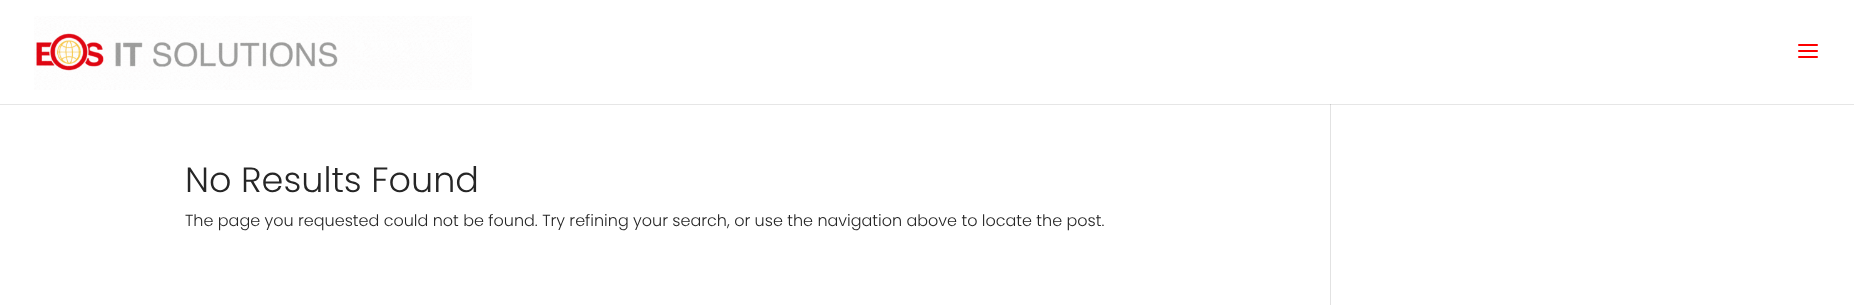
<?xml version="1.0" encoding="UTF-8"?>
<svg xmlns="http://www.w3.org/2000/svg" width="1854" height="305">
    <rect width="100%" height="100%" fill="#FFFFFF"/>
    <rect x="0" y="104" width="1854" height="1" fill="#E6E6E6"/>
    <image x="34" y="16" width="438" height="74" href="img_01.png"/>
    <image x="1798" y="44" width="20" height="14" href="img_02.png"/>
    <text x="185" y="192" font-family="Poppins" font-size="35" font-weight="300" fill="#262626">No Results Found</text>
    <text x="185" y="226" font-family="Poppins" font-size="16" font-weight="300" fill="#262626">The page you requested could not be found. Try refining your search, or use the navigation above to locate the post.</text>
    <rect x="1330" y="104" width="1" height="201" fill="#E2E2E2"/>
    <rect x="1330" y="104" width="1" height="1" fill="#CBCBCB"/>
</svg>
